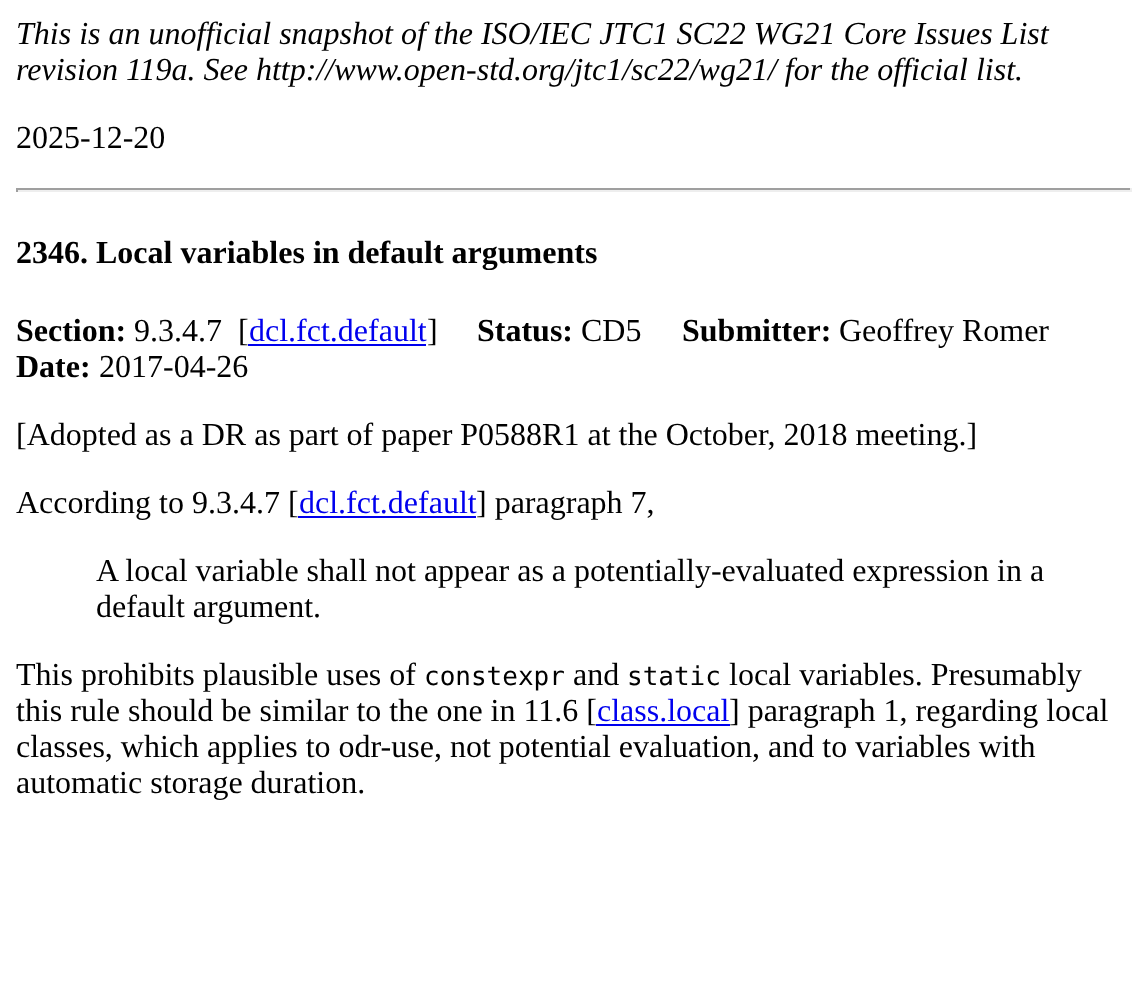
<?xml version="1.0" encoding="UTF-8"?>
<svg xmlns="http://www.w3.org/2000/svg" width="1147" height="1003">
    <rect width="100%" height="100%" fill="#FFFFFF"/>
    <text font-family="Liberation Serif" font-size="32" font-style="italic" fill="#000000">
        <tspan x="16" y="44">This is an unofficial snapshot of the ISO/IEC JTC1 SC22 WG21 Core Issues List</tspan>
        <tspan x="16" y="80">revision 119a. See http://www.open-std.org/jtc1/sc22/wg21/ for the official list.</tspan>
    </text>
    <text x="16" y="148" font-family="Liberation Serif" font-size="32" fill="#000000">2025-12-20</text>
    <rect x="16" y="188" width="1116" height="2" fill="#9F9F9F"/>
    <rect x="1130" y="188" width="2" height="4" fill="#EEEEEE"/>
    <rect x="16" y="190" width="1116" height="2" fill="#EEEEEE"/>
    <rect x="16" y="188" width="2" height="4" fill="#9F9F9F"/>
    <text x="16" y="263" font-family="Liberation Serif" font-size="32" font-weight="700" fill="#000000">2346. Local variables in default arguments</text>
    <text x="16" y="341" font-family="Liberation Serif" font-size="32" font-weight="700" fill="#000000">Section:</text>
    <text x="134" y="341" font-family="Liberation Serif" font-size="32" fill="#000000" xml:space="preserve">9.3.4.7  [</text>
    <text x="249" y="341" font-family="Liberation Serif" font-size="32" fill="#0000EE">dcl.fct.default</text>
    <rect x="248" y="344" width="178" height="2" fill="#0000EE"/>
    <text x="427" y="341" font-family="Liberation Serif" font-size="32" fill="#000000">]</text>
    <text x="477" y="341" font-family="Liberation Serif" font-size="32" font-weight="700" fill="#000000">Status:</text>
    <text x="581" y="341" font-family="Liberation Serif" font-size="32" fill="#000000">CD5</text>
    <text x="682" y="341" font-family="Liberation Serif" font-size="32" font-weight="700" fill="#000000">Submitter:</text>
    <text x="839" y="341" font-family="Liberation Serif" font-size="32" fill="#000000">Geoffrey Romer</text>
    <text x="16" y="377" font-family="Liberation Serif" font-size="32" font-weight="700" fill="#000000">Date:</text>
    <text x="99" y="377" font-family="Liberation Serif" font-size="32" fill="#000000">2017-04-26</text>
    <text x="16" y="445" font-family="Liberation Serif" font-size="32" fill="#000000">[Adopted as a DR as part of paper P0588R1 at the October, 2018 meeting.]</text>
    <text x="16" y="513" font-family="Liberation Serif" font-size="32" fill="#000000">According to 9.3.4.7 [</text>
    <text x="299" y="513" font-family="Liberation Serif" font-size="32" fill="#0000EE">dcl.fct.default</text>
    <rect x="298" y="516" width="178" height="2" fill="#0000EE"/>
    <text x="476" y="513" font-family="Liberation Serif" font-size="32" fill="#000000">] paragraph 7,</text>
    <text font-family="Liberation Serif" font-size="32" fill="#000000">
        <tspan x="96" y="581">A local variable shall not appear as a potentially-evaluated expression in a</tspan>
        <tspan x="96" y="617">default argument.</tspan>
    </text>
    <text x="16" y="685" font-family="Liberation Serif" font-size="32" fill="#000000">This prohibits plausible uses of</text>
    <text x="424" y="685" font-family="DejaVu Sans Mono" font-size="26" fill="#000000">constexpr</text>
    <text x="573" y="685" font-family="Liberation Serif" font-size="32" fill="#000000">and</text>
    <text x="627" y="685" font-family="DejaVu Sans Mono" font-size="26" fill="#000000">static</text>
    <text x="729" y="685" font-family="Liberation Serif" font-size="32" fill="#000000">local variables. Presumably</text>
    <text x="16" y="721" font-family="Liberation Serif" font-size="32" fill="#000000">this rule should be similar to the one in 11.6 [</text>
    <text x="597" y="721" font-family="Liberation Serif" font-size="32" fill="#0000EE">class.local</text>
    <rect x="596" y="724" width="134" height="2" fill="#0000EE"/>
    <text x="729" y="721" font-family="Liberation Serif" font-size="32" fill="#000000">] paragraph 1, regarding local</text>
    <text font-family="Liberation Serif" font-size="32" fill="#000000">
        <tspan x="16" y="757">classes, which applies to odr-use, not potential evaluation, and to variables with</tspan>
        <tspan x="16" y="793">automatic storage duration.</tspan>
    </text>
</svg>
